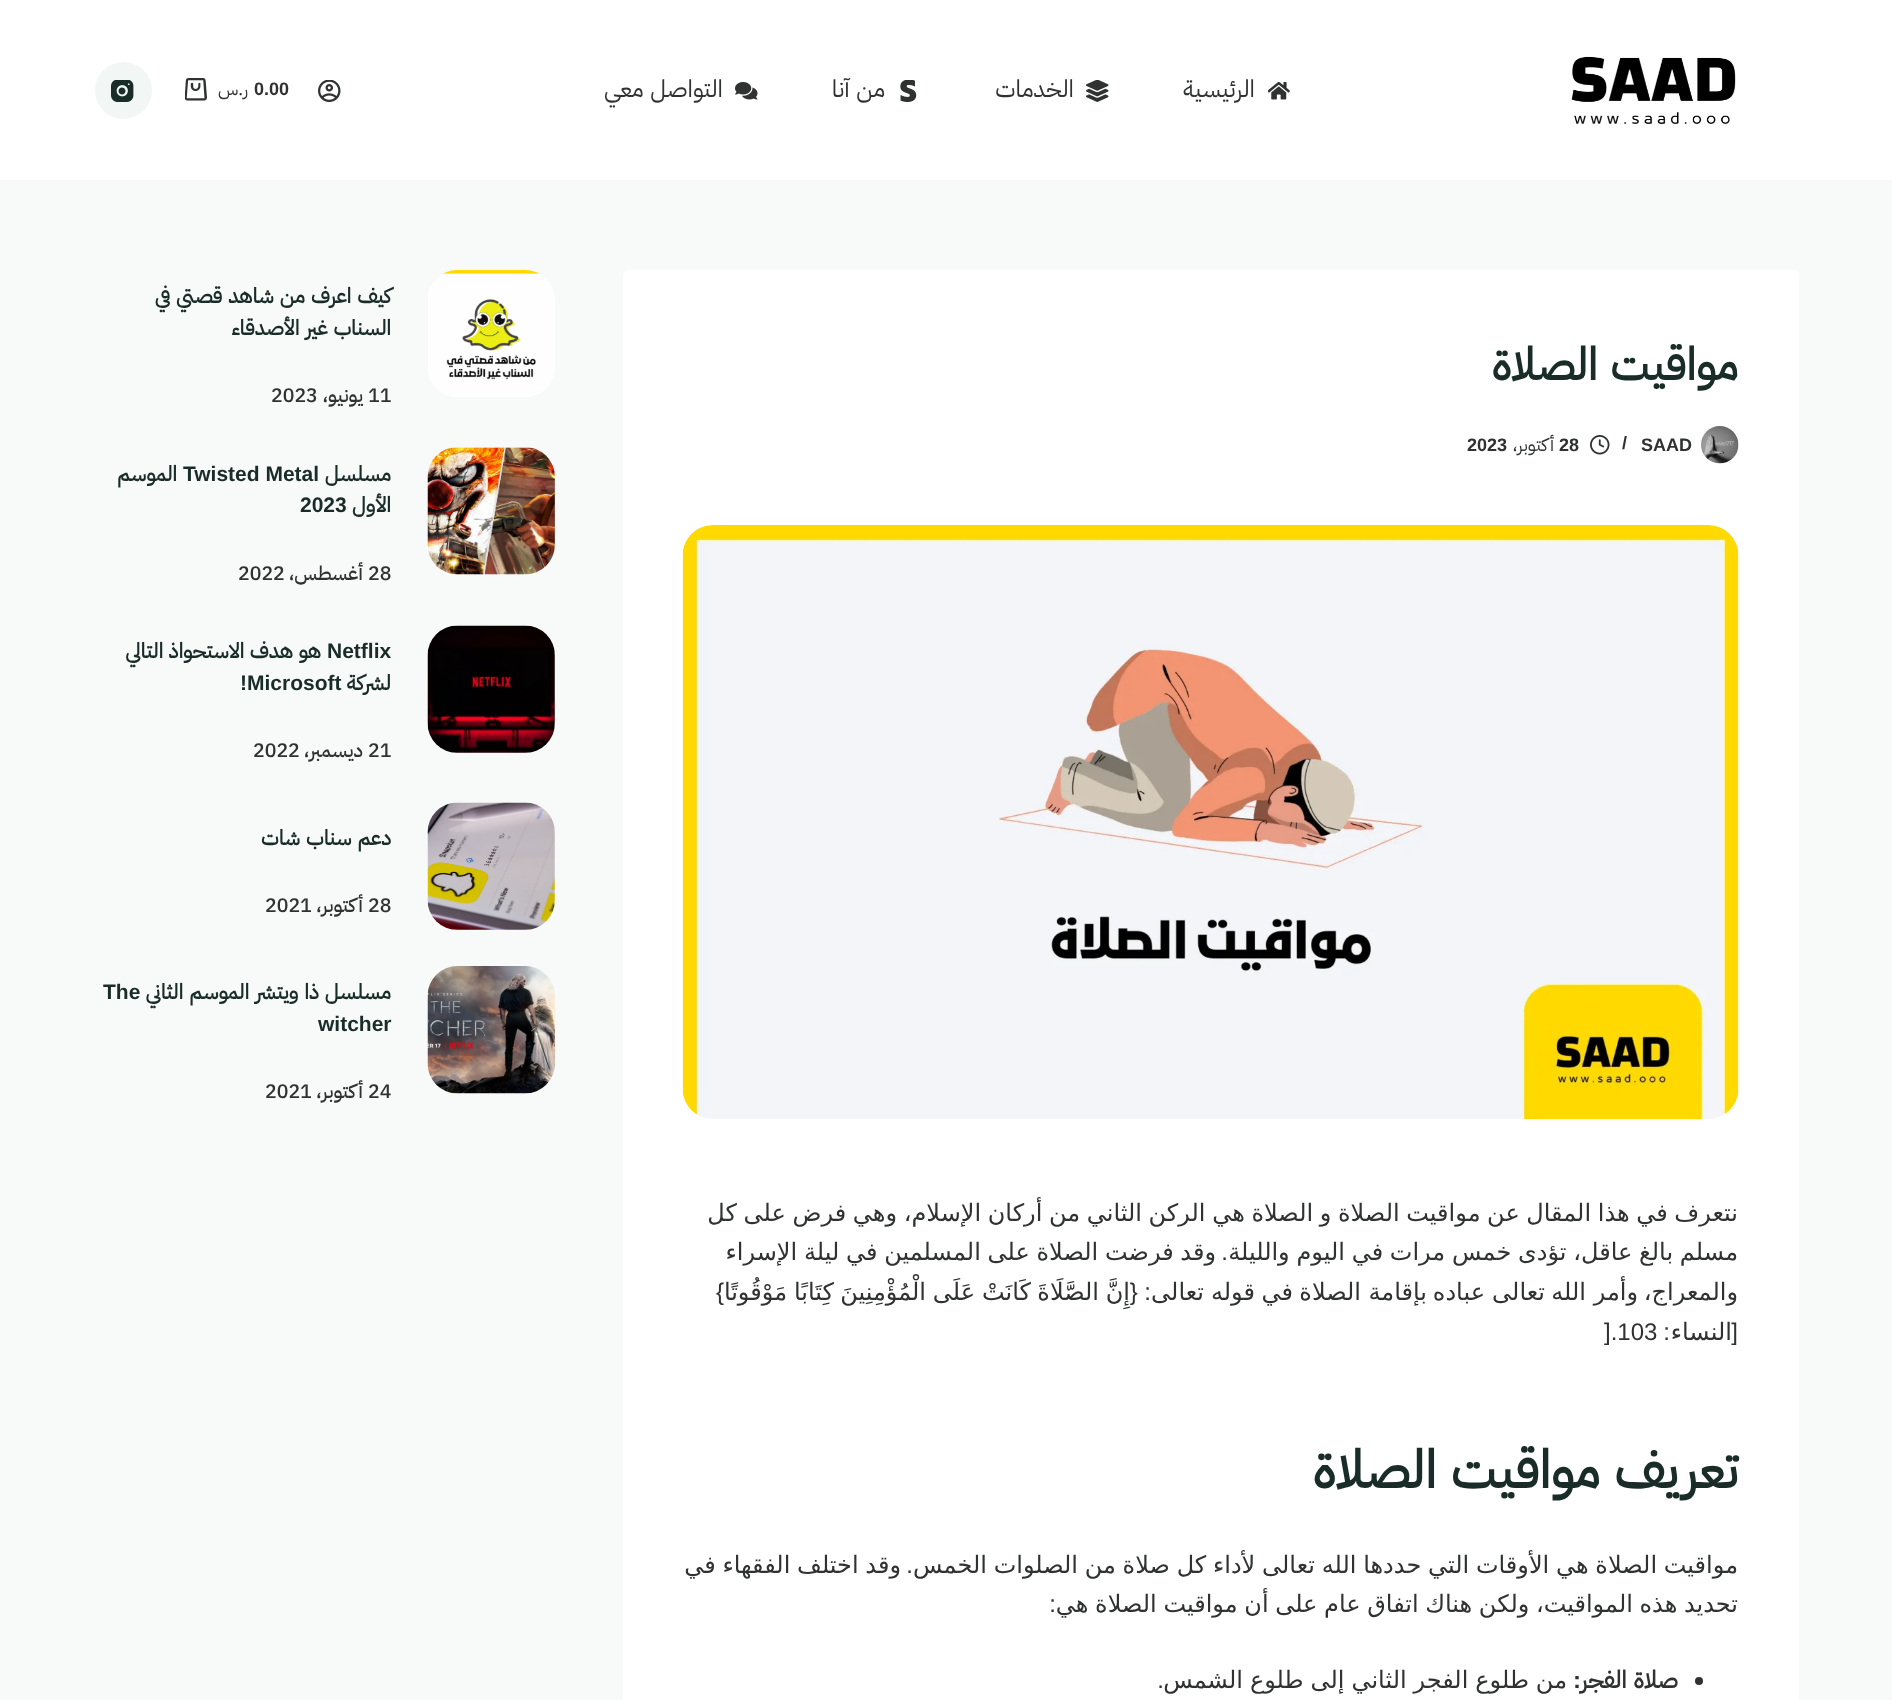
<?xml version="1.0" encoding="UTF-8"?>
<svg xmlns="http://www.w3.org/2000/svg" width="1892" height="1700">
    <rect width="100%" height="100%" fill="#F8FAFA"/>
    <rect x="0" y="0" width="1892" height="180" fill="#FFFFFF"/>
    <image x="1571" y="56" width="165" height="68" href="img_01.png"/>
    <image x="1268" y="82" width="22" height="18" href="img_02.png"/>
    <text x="1255" y="97" font-family="IBM Plex Sans Arabic" font-size="24" direction="rtl" fill="#303232">الرئيسية</text>
    <image x="1086" y="80" width="23" height="22" href="img_03.png"/>
    <text x="1074" y="97" font-family="IBM Plex Sans Arabic" font-size="24" direction="rtl" fill="#303232">الخدمات</text>
    <image x="900" y="80" width="17" height="22" href="img_04.png"/>
    <text x="885" y="97" word-spacing="1" font-family="IBM Plex Sans Arabic" font-size="24" direction="rtl" fill="#303232">من آنا</text>
    <image x="735" y="82" width="23" height="18" href="img_05.png"/>
    <text x="723" y="97" word-spacing="1" font-family="IBM Plex Sans Arabic" font-size="24" direction="rtl" fill="#303232">التواصل معي</text>
    <image x="318" y="80" width="23" height="22" href="img_06.png"/>
    <text x="254" y="95" font-family="Liberation Sans" font-size="18" font-weight="700" fill="#303232">0.00</text>
    <text x="248" y="95" font-family="IBM Plex Sans Arabic" font-size="18" direction="rtl" fill="#303232">ر.س</text>
    <image x="185" y="78" width="22" height="23" href="img_07.png"/>
    <circle cx="123.5" cy="90.5" r="28.5" fill="#F2F7F6"/>
    <image x="111" y="80" width="23" height="22" href="img_08.png"/>
    <rect x="623" y="270" width="1176" height="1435" rx="5" fill="#FFFFFF"/>
    <text x="1738" y="380" word-spacing="2" font-family="IBM Plex Sans Arabic" font-size="45" font-weight="700" direction="rtl" fill="#192C27">مواقيت الصلاة</text>
    <image x="1701" y="426" width="38" height="38" href="img_09.png"/>
    <text x="1641" y="451" font-family="Liberation Sans" font-size="18" font-weight="700" fill="#303232">SAAD</text>
    <text x="1622" y="449" font-family="Liberation Sans" font-size="18" font-weight="700" fill="#303232">/</text>
    <image x="1590" y="435" width="20" height="20" href="img_10.png"/>
    <text x="1559" y="451" font-family="Liberation Sans" font-size="18" font-weight="700" fill="#303232">28</text>
    <text x="1554" y="451" font-family="IBM Plex Sans Arabic" font-size="18" direction="rtl" fill="#303232">أكتوبر،</text>
    <text x="1467" y="451" font-family="Liberation Sans" font-size="18" font-weight="700" fill="#303232">2023</text>
    <image x="682" y="525" width="1057" height="594" href="img_11.png"/>
    <text font-family="DejaVu Sans" font-size="24" direction="rtl" fill="#303232">
        <tspan x="1738" y="1221" word-spacing="-1">نتعرف في هذا المقال عن مواقيت الصلاة و الصلاة هي الركن الثاني من أركان الإسلام، وهي فرض على كل</tspan>
        <tspan x="1738" y="1260" word-spacing="-0.9">مسلم بالغ عاقل، تؤدى خمس مرات في اليوم والليلة</tspan>
    </text>
    <text x="1228" y="1260" font-family="Liberation Sans" font-size="24" direction="rtl" fill="#303232">.</text>
    <text x="1216" y="1260" word-spacing="-0.9" font-family="DejaVu Sans" font-size="24" direction="rtl" fill="#303232">وقد فرضت الصلاة على المسلمين في ليلة الإسراء</text>
    <text x="1738" y="1300" font-family="DejaVu Sans" font-size="24" direction="rtl" fill="#303232">والمعراج،</text>
    <text x="1638" y="1300" font-family="DejaVu Sans" font-size="24" direction="rtl" fill="#303232">وأمر</text>
    <text x="1586" y="1300" font-family="DejaVu Sans" font-size="24" direction="rtl" fill="#303232">الله</text>
    <text x="1545" y="1300" font-family="DejaVu Sans" font-size="24" direction="rtl" fill="#303232">تعالى</text>
    <text x="1485" y="1300" font-family="DejaVu Sans" font-size="24" direction="rtl" fill="#303232">عباده</text>
    <text x="1427" y="1300" font-family="DejaVu Sans" font-size="24" direction="rtl" fill="#303232">بإقامة</text>
    <text x="1361" y="1300" font-family="DejaVu Sans" font-size="24" direction="rtl" fill="#303232">الصلاة</text>
    <text x="1293" y="1300" font-family="DejaVu Sans" font-size="24" direction="rtl" fill="#303232">في</text>
    <text x="1255" y="1300" font-family="DejaVu Sans" font-size="24" direction="rtl" fill="#303232">قوله</text>
    <text x="1204" y="1300" font-family="DejaVu Sans" font-size="24" direction="rtl" fill="#303232">تعالى</text>
    <text x="1151" y="1300" font-family="Liberation Sans" font-size="24" direction="rtl" fill="#303232">: {</text>
    <text x="1130" y="1300" font-family="DejaVu Sans" font-size="24" direction="rtl" fill="#303232">إِنَّ</text>
    <text x="1099" y="1300" font-family="DejaVu Sans" font-size="24" direction="rtl" fill="#303232">الصَّلَاةَ</text>
    <text x="1031" y="1300" font-family="DejaVu Sans" font-size="24" direction="rtl" fill="#303232">كَانَتْ</text>
    <text x="975" y="1300" font-family="DejaVu Sans" font-size="24" direction="rtl" fill="#303232">عَلَى</text>
    <text x="926" y="1300" font-family="DejaVu Sans" font-size="24" direction="rtl" fill="#303232">الْمُؤْمِنِينَ</text>
    <text x="834" y="1300" font-family="DejaVu Sans" font-size="24" direction="rtl" fill="#303232">كِتَابًا</text>
    <text x="787" y="1300" font-family="DejaVu Sans" font-size="24" direction="rtl" fill="#303232">مَوْقُوتًا</text>
    <text x="724" y="1300" font-family="Liberation Sans" font-size="24" direction="rtl" fill="#303232">}</text>
    <text x="1738" y="1340" font-family="Liberation Sans" font-size="24" direction="rtl" fill="#303232">[</text>
    <text x="1732" y="1340" font-family="DejaVu Sans" font-size="24" direction="rtl" fill="#303232">النساء</text>
    <text x="1670" y="1340" font-family="Liberation Sans" font-size="24" direction="rtl" fill="#303232">:</text>
    <text x="1604" y="1340" font-family="Liberation Sans" font-size="24" fill="#303232">].103</text>
    <text x="1738" y="1488" word-spacing="2" font-family="IBM Plex Sans Arabic" font-size="52.5" font-weight="700" direction="rtl" fill="#192C27">تعريف مواقيت الصلاة</text>
    <text x="1738" y="1573" word-spacing="-0.9" font-family="DejaVu Sans" font-size="24" direction="rtl" fill="#303232">مواقيت الصلاة هي الأوقات التي حددها الله تعالى لأداء كل صلاة من الصلوات الخمس</text>
    <text x="913" y="1573" font-family="Liberation Sans" font-size="24" direction="rtl" fill="#303232">.</text>
    <text x="901" y="1573" word-spacing="-0.9" font-family="DejaVu Sans" font-size="24" direction="rtl" fill="#303232">وقد اختلف الفقهاء في</text>
    <text x="1738" y="1612" word-spacing="-1" font-family="DejaVu Sans" font-size="24" direction="rtl" fill="#303232">تحديد هذه المواقيت، ولكن هناك اتفاق عام على أن مواقيت الصلاة هي</text>
    <text x="1056" y="1612" font-family="Liberation Sans" font-size="24" direction="rtl" fill="#303232">:</text>
    <circle cx="1699" cy="1681" r="4" fill="#303232"/>
    <text x="1678" y="1688" word-spacing="1" font-family="IBM Plex Sans Arabic" font-size="24" font-weight="700" direction="rtl" fill="#303232">صلاة الفجر</text>
    <text x="1581" y="1688" font-family="Liberation Sans" font-size="24" font-weight="700" direction="rtl" fill="#303232">:</text>
    <text x="1567" y="1688" word-spacing="-0.75" font-family="DejaVu Sans" font-size="24" direction="rtl" fill="#303232">من طلوع الفجر الثاني إلى طلوع الشمس</text>
    <text x="1164" y="1688" font-family="Liberation Sans" font-size="24" direction="rtl" fill="#303232">.</text>
    <image x="428" y="270" width="127" height="127" href="img_12.png"/>
    <text font-family="IBM Plex Sans Arabic" font-size="21" font-weight="700" direction="rtl" fill="#192C27">
        <tspan x="391" y="303" word-spacing="1">كيف اعرف من شاهد قصتي في</tspan>
        <tspan x="391" y="335" word-spacing="1">السناب غير الأصدقاء</tspan>
    </text>
    <text x="368" y="402" font-family="IBM Plex Sans Arabic" font-size="19.5" font-weight="500" fill="#303232">11</text>
    <text x="363" y="402" font-family="IBM Plex Sans Arabic" font-size="19.5" font-weight="500" direction="rtl" fill="#303232">يونيو،</text>
    <text x="271" y="402" font-family="IBM Plex Sans Arabic" font-size="19.5" font-weight="500" fill="#303232">2023</text>
    <image x="427" y="447" width="128" height="128" href="img_13.png"/>
    <text x="391" y="481" font-family="IBM Plex Sans Arabic" font-size="21" font-weight="700" direction="rtl" fill="#192C27">مسلسل</text>
    <text x="183" y="481" font-family="Liberation Sans" font-size="21" font-weight="700" fill="#192C27">Twisted Metal</text>
    <text x="177" y="481" font-family="IBM Plex Sans Arabic" font-size="21" font-weight="700" direction="rtl" fill="#192C27">الموسم</text>
    <text x="391" y="512" font-family="IBM Plex Sans Arabic" font-size="21" font-weight="700" direction="rtl" fill="#192C27">الأول</text>
    <text x="300" y="512" font-family="Liberation Sans" font-size="21" font-weight="700" fill="#192C27">2023</text>
    <text x="368" y="580" font-family="IBM Plex Sans Arabic" font-size="19.5" font-weight="500" fill="#303232">28</text>
    <text x="363" y="580" font-family="IBM Plex Sans Arabic" font-size="19.5" font-weight="500" direction="rtl" fill="#303232">أغسطس،</text>
    <text x="238" y="580" font-family="IBM Plex Sans Arabic" font-size="19.5" font-weight="500" fill="#303232">2022</text>
    <image x="427" y="625" width="128" height="128" href="img_14.png"/>
    <text x="327" y="658" font-family="Liberation Sans" font-size="21" font-weight="700" fill="#192C27">Netflix</text>
    <text x="321" y="658" word-spacing="0.5" font-family="IBM Plex Sans Arabic" font-size="21" font-weight="700" direction="rtl" fill="#192C27">هو هدف الاستحواذ التالي</text>
    <text x="391" y="690" font-family="IBM Plex Sans Arabic" font-size="21" font-weight="700" direction="rtl" fill="#192C27">لشركة</text>
    <text x="240" y="690" font-family="Liberation Sans" font-size="21" font-weight="700" fill="#192C27">!Microsoft</text>
    <text x="368" y="757" font-family="IBM Plex Sans Arabic" font-size="19.5" font-weight="500" fill="#303232">21</text>
    <text x="363" y="757" font-family="IBM Plex Sans Arabic" font-size="19.5" font-weight="500" direction="rtl" fill="#303232">ديسمبر،</text>
    <text x="253" y="757" font-family="IBM Plex Sans Arabic" font-size="19.5" font-weight="500" fill="#303232">2022</text>
    <image x="427" y="802" width="128" height="128" href="img_15.png"/>
    <text x="391" y="845" word-spacing="1" font-family="IBM Plex Sans Arabic" font-size="21" font-weight="700" direction="rtl" fill="#192C27">دعم سناب شات</text>
    <text x="368" y="912" font-family="IBM Plex Sans Arabic" font-size="19.5" font-weight="500" fill="#303232">28</text>
    <text x="363" y="912" font-family="IBM Plex Sans Arabic" font-size="19.5" font-weight="500" direction="rtl" fill="#303232">أكتوبر،</text>
    <text x="265" y="912" font-family="IBM Plex Sans Arabic" font-size="19.5" font-weight="500" fill="#303232">2021</text>
    <image x="427" y="966" width="128" height="128" href="img_16.png"/>
    <text x="391" y="999" word-spacing="1" font-family="IBM Plex Sans Arabic" font-size="21" font-weight="700" direction="rtl" fill="#192C27">مسلسل ذا ويتشر الموسم الثاني</text>
    <text x="103" y="999" font-family="Liberation Sans" font-size="21" font-weight="700" fill="#192C27">The</text>
    <text x="318" y="1031" font-family="Liberation Sans" font-size="21" font-weight="700" fill="#192C27">witcher</text>
    <text x="368" y="1098" font-family="IBM Plex Sans Arabic" font-size="19.5" font-weight="500" fill="#303232">24</text>
    <text x="363" y="1098" font-family="IBM Plex Sans Arabic" font-size="19.5" font-weight="500" direction="rtl" fill="#303232">أكتوبر،</text>
    <text x="265" y="1098" font-family="IBM Plex Sans Arabic" font-size="19.5" font-weight="500" fill="#303232">2021</text>
</svg>
